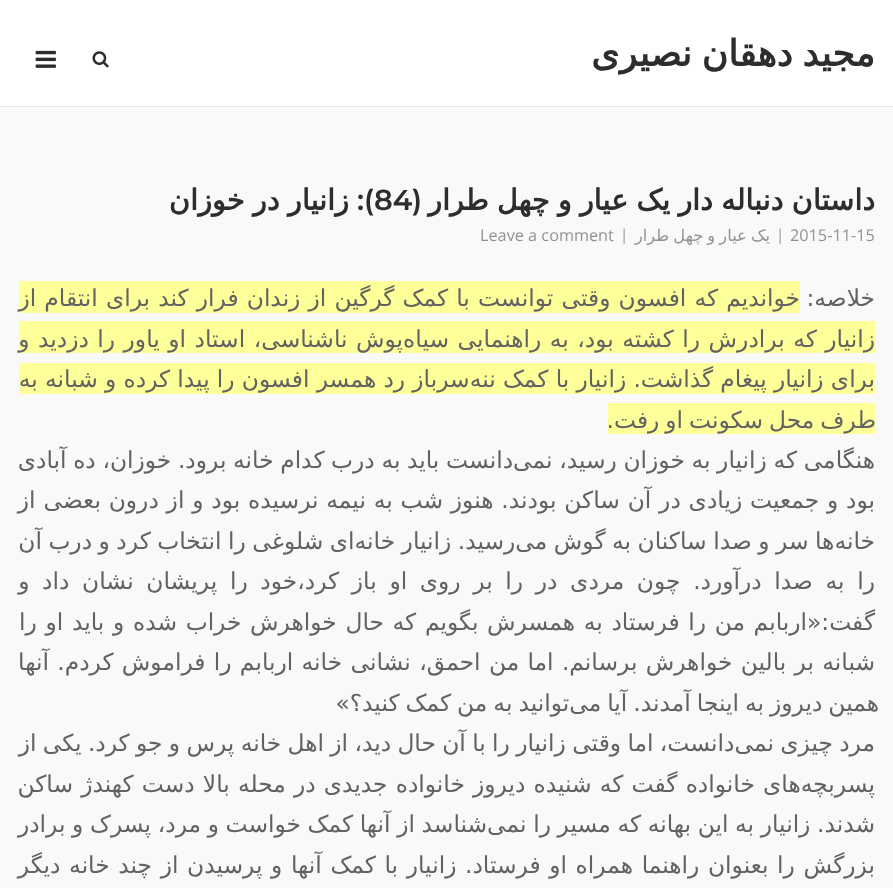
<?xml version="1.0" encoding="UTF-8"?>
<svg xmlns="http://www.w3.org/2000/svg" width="893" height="888">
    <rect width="100%" height="100%" fill="#F9F9F9"/>
    <rect x="0" y="0" width="893" height="108" fill="#FFFFFF"/>
    <rect x="0" y="106" width="893" height="1" fill="#E6E6E6"/>
    <text x="875" y="66" word-spacing="-2" font-family="DejaVu Sans" font-size="36.25" font-weight="700" direction="rtl" fill="#2D2D2D">مجید دهقان نصیری</text>
    <image x="92" y="51" width="17" height="17" href="img_01.png"/>
    <image x="35" y="50" width="21" height="18" href="img_02.png"/>
    <text x="875" y="210" word-spacing="-1" font-family="DejaVu Sans" font-size="28.75" font-weight="700" direction="rtl" fill="#2D2D2D">داستان دنباله دار یک عیار و چهل طرار</text>
    <text x="422" y="210" font-family="Montserrat" font-size="28.75" font-weight="600" direction="rtl" fill="#2D2D2D">(</text>
    <text x="374" y="210" font-family="Montserrat" font-size="28.75" font-weight="600" fill="#2D2D2D">84</text>
    <text x="374" y="210" font-family="Montserrat" font-size="28.75" font-weight="600" direction="rtl" fill="#2D2D2D">):</text>
    <text x="349" y="210" word-spacing="-0.8" font-family="DejaVu Sans" font-size="28.75" font-weight="700" direction="rtl" fill="#2D2D2D">زانیار در خوزان</text>
    <text x="790" y="241" font-family="Open Sans" font-size="16.25" fill="#929292">2015-11-15</text>
    <text x="776" y="240" font-family="Open Sans" font-size="15" fill="#929292">|</text>
    <text x="770" y="241" word-spacing="-1" font-family="DejaVu Sans" font-size="16.25" direction="rtl" fill="#929292">یک عیار و چهل طرار</text>
    <text x="620" y="240" font-family="Open Sans" font-size="15" fill="#929292">|</text>
    <text x="480" y="241" font-family="Open Sans" font-size="16.25" fill="#929292">Leave a comment</text>
    <text x="875" y="306" font-family="DejaVu Sans" font-size="23.35" direction="rtl" fill="#626262">خلاصه:</text>
    <rect x="19" y="281" width="781" height="32" fill="#FFFF99"/>
    <text x="800" y="306" word-spacing="0.75" font-family="DejaVu Sans" font-size="23.35" direction="rtl" fill="#626262">خواندیم که افسون وقتی توانست با کمک گرگین از زندان فرار کند برای انتقام از</text>
    <rect x="19" y="321" width="856" height="32" fill="#FFFF99"/>
    <text x="875" y="347" word-spacing="1.1" font-family="DejaVu Sans" font-size="23.35" direction="rtl" fill="#626262">زانیار که برادرش را کشته بود، به راهنمایی سیاه‌پوش ناشناسی، استاد او یاور را دزدید و</text>
    <rect x="19" y="363" width="856" height="31" fill="#FFFF99"/>
    <text x="875" y="387" word-spacing="-0.2" font-family="DejaVu Sans" font-size="23.35" direction="rtl" fill="#626262">برای زانیار پیغام گذاشت. زانیار با کمک ننه‌سرباز رد همسر افسون را پیدا کرده و شبانه به</text>
    <rect x="608" y="403" width="267" height="31" fill="#FFFF99"/>
    <text x="876" y="428" word-spacing="-1.4" font-family="DejaVu Sans" font-size="23.35" direction="rtl" fill="#626262">طرف محل سکونت او رفت.</text>
    <text font-family="DejaVu Sans" font-size="23.35" direction="rtl" fill="#626262">
        <tspan x="875" y="468" word-spacing="-0.8">هنگامی که زانیار به خوزان رسید، نمی‌دانست باید به درب کدام خانه برود. خوزان، ده آبادی</tspan>
        <tspan x="875" y="508" word-spacing="0.4">بود و جمعیت زیادی در آن ساکن بودند. هنوز شب به نیمه نرسیده بود و از درون بعضی از</tspan>
        <tspan x="875" y="549" word-spacing="-0.9">خانه‌ها سر و صدا ساکنان به گوش می‌رسید. زانیار خانه‌ای شلوغی را انتخاب کرد و درب آن</tspan>
        <tspan x="875" y="589" word-spacing="5.25">را به صدا درآورد. چون مردی در را بر روی او باز کرد،خود را پریشان نشان داد و</tspan>
        <tspan x="875" y="630" word-spacing="1.25">گفت:«اربابم من را فرستاد به همسرش بگویم که حال خواهرش خراب شده و باید او را</tspan>
        <tspan x="875" y="670" word-spacing="0.9">شبانه بر بالین خواهرش برسانم. اما من احمق، نشانی خانه اربابم را فراموش کردم. آنها</tspan>
    </text>
    <text x="879" y="711" word-spacing="-1.4" font-family="DejaVu Sans" font-size="23.35" direction="rtl" fill="#626262">همین دیروز به اینجا آمدند. آیا می‌توانید به من کمک کنید؟»</text>
    <text font-family="DejaVu Sans" font-size="23.35" direction="rtl" fill="#626262">
        <tspan x="875" y="751" word-spacing="-1.1">مرد چیزی نمی‌دانست، اما وقتی زانیار را با آن حال دید، از اهل خانه پرس و جو کرد. یکی از</tspan>
        <tspan x="875" y="792" word-spacing="0.75">پسربچه‌های خانواده گفت که شنیده دیروز خانواده جدیدی در محله بالا دست کهندژ ساکن</tspan>
        <tspan x="875" y="832" word-spacing="-0.8">شدند. زانیار به این بهانه که مسیر را نمی‌شناسد از آنها کمک خواست و مرد، پسرک و برادر</tspan>
        <tspan x="875" y="873" word-spacing="1.2">بزرگش را بعنوان راهنما همراه او فرستاد. زانیار با کمک آنها و پرسیدن از چند خانه دیگر</tspan>
    </text>
</svg>
